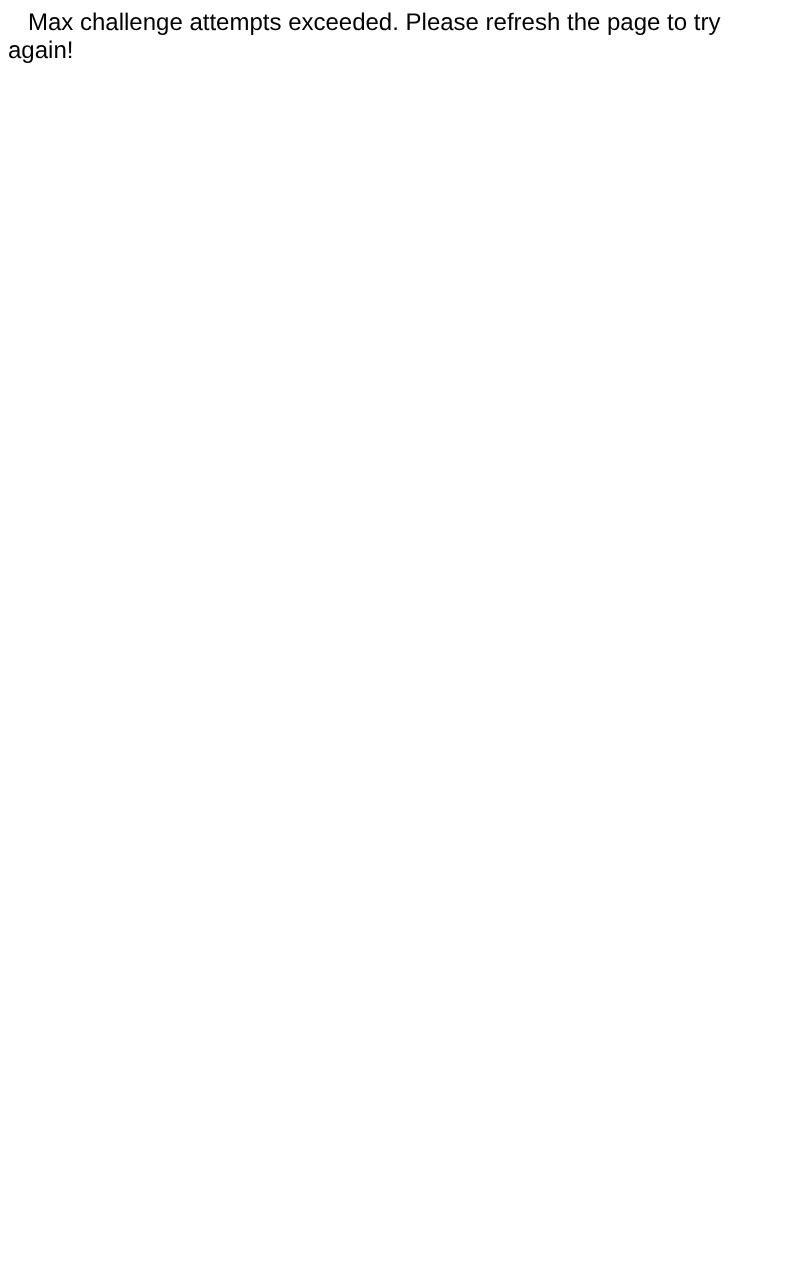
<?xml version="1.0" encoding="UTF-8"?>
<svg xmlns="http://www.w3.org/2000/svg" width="807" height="1275">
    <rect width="100%" height="100%" fill="#FFFFFF"/>
    <text x="28" y="30" font-family="Liberation Sans" font-size="24" fill="#000000">Max challenge attempts exceeded. Please refresh the page to try</text>
    <text x="8" y="58" font-family="Liberation Sans" font-size="24" fill="#000000">again!</text>
</svg>
